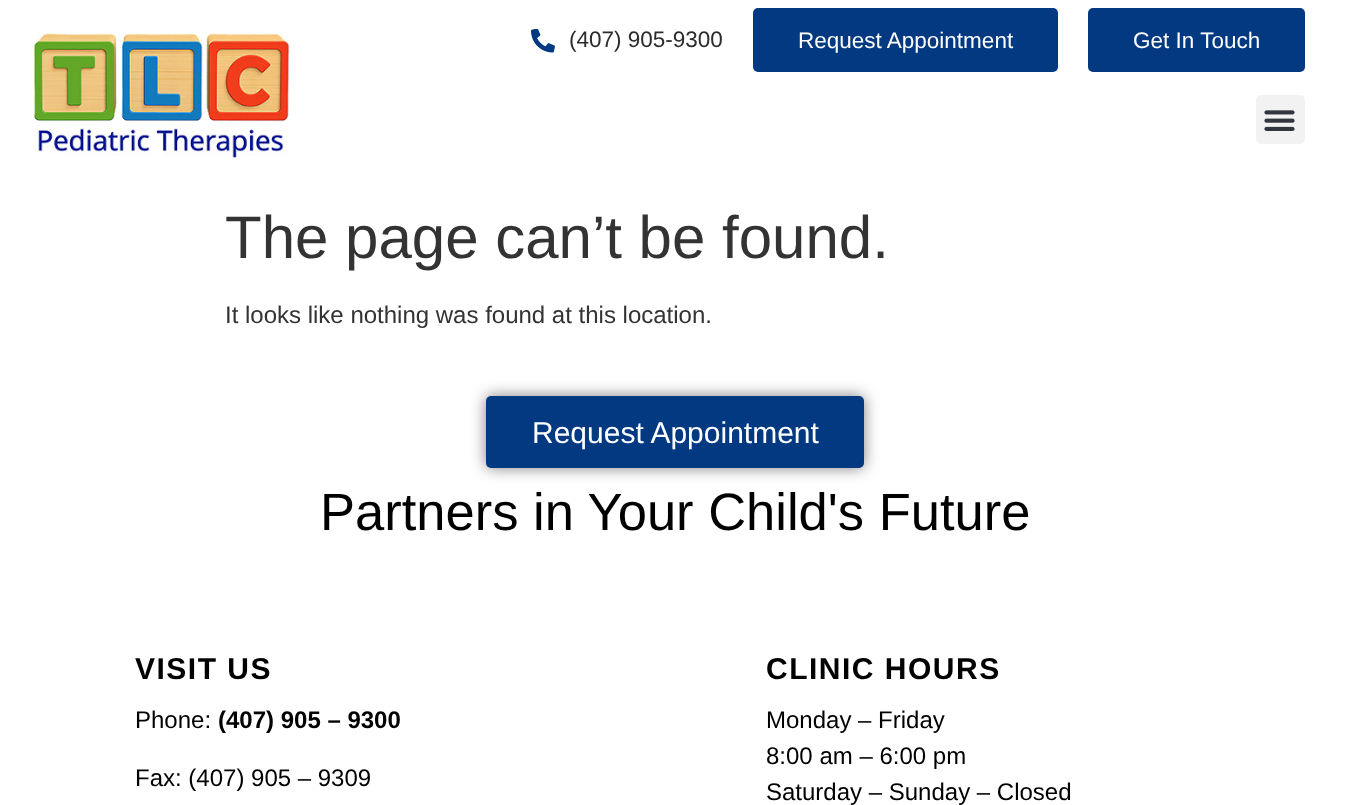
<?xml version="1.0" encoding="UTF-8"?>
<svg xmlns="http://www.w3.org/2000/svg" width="1349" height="805">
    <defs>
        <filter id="blur1" x="-50%" y="-200%" width="200%" height="500%"><feGaussianBlur stdDeviation="7.5"/></filter>
    </defs>
    <rect width="100%" height="100%" fill="#FFFFFF"/>
    <image x="30" y="30" width="260" height="129" href="img_01.png"/>
    <image x="531" y="29" width="24" height="24" href="img_02.png"/>
    <text x="569" y="47" font-family="Liberation Sans" font-size="22.5" fill="#2C2C2C">(407) 905-9300</text>
    <rect x="753" y="8" width="305" height="64" rx="5" fill="#023981"/>
    <text x="798" y="48" font-family="Liberation Sans" font-size="22.5" fill="#FFFFFF">Request Appointment</text>
    <rect x="1088" y="8" width="217" height="64" rx="5" fill="#023981"/>
    <text x="1133" y="48" font-family="Liberation Sans" font-size="22.5" fill="#FFFFFF">Get In Touch</text>
    <rect x="1256" y="95" width="49" height="49" rx="5" fill="#F2F2F2"/>
    <image x="1264" y="110" width="31" height="21" href="img_03.png"/>
    <text x="225" y="258" font-family="Liberation Sans" font-size="60" fill="#333333">The page can’t be found.</text>
    <text x="225" y="323" font-family="Liberation Sans" font-size="24" fill="#333333">It looks like nothing was found at this location.</text>
    <rect x="486" y="396" width="378" height="72" rx="5" fill="#000000" fill-opacity="0.5" filter="url(#blur1)"/>
    <rect x="486" y="396" width="378" height="72" rx="5" fill="#023981"/>
    <text x="532" y="443" font-family="Liberation Sans" font-size="30" fill="#FFFFFF">Request Appointment</text>
    <text x="320" y="530" font-family="Liberation Sans" font-size="52.5" fill="#000000">Partners in Your Child's Future</text>
    <text x="135" y="679" font-family="Liberation Sans" font-size="30" font-weight="700" letter-spacing="1.5" fill="#000000">VISIT US</text>
    <text x="135" y="728" font-family="Liberation Sans" font-size="24" fill="#000000">Phone:</text>
    <text x="218" y="728" font-family="Liberation Sans" font-size="24" font-weight="700" fill="#000000">(407) 905 – 9300</text>
    <text x="135" y="786" font-family="Liberation Sans" font-size="24" fill="#000000">Fax: (407) 905 – 9309</text>
    <text x="766" y="679" font-family="Liberation Sans" font-size="30" font-weight="700" letter-spacing="1.5" fill="#000000">CLINIC HOURS</text>
    <text font-family="Liberation Sans" font-size="24" fill="#000000">
        <tspan x="766" y="728">Monday – Friday</tspan>
        <tspan x="766" y="764">8:00 am – 6:00 pm</tspan>
        <tspan x="766" y="800">Saturday – Sunday – Closed</tspan>
    </text>
</svg>
